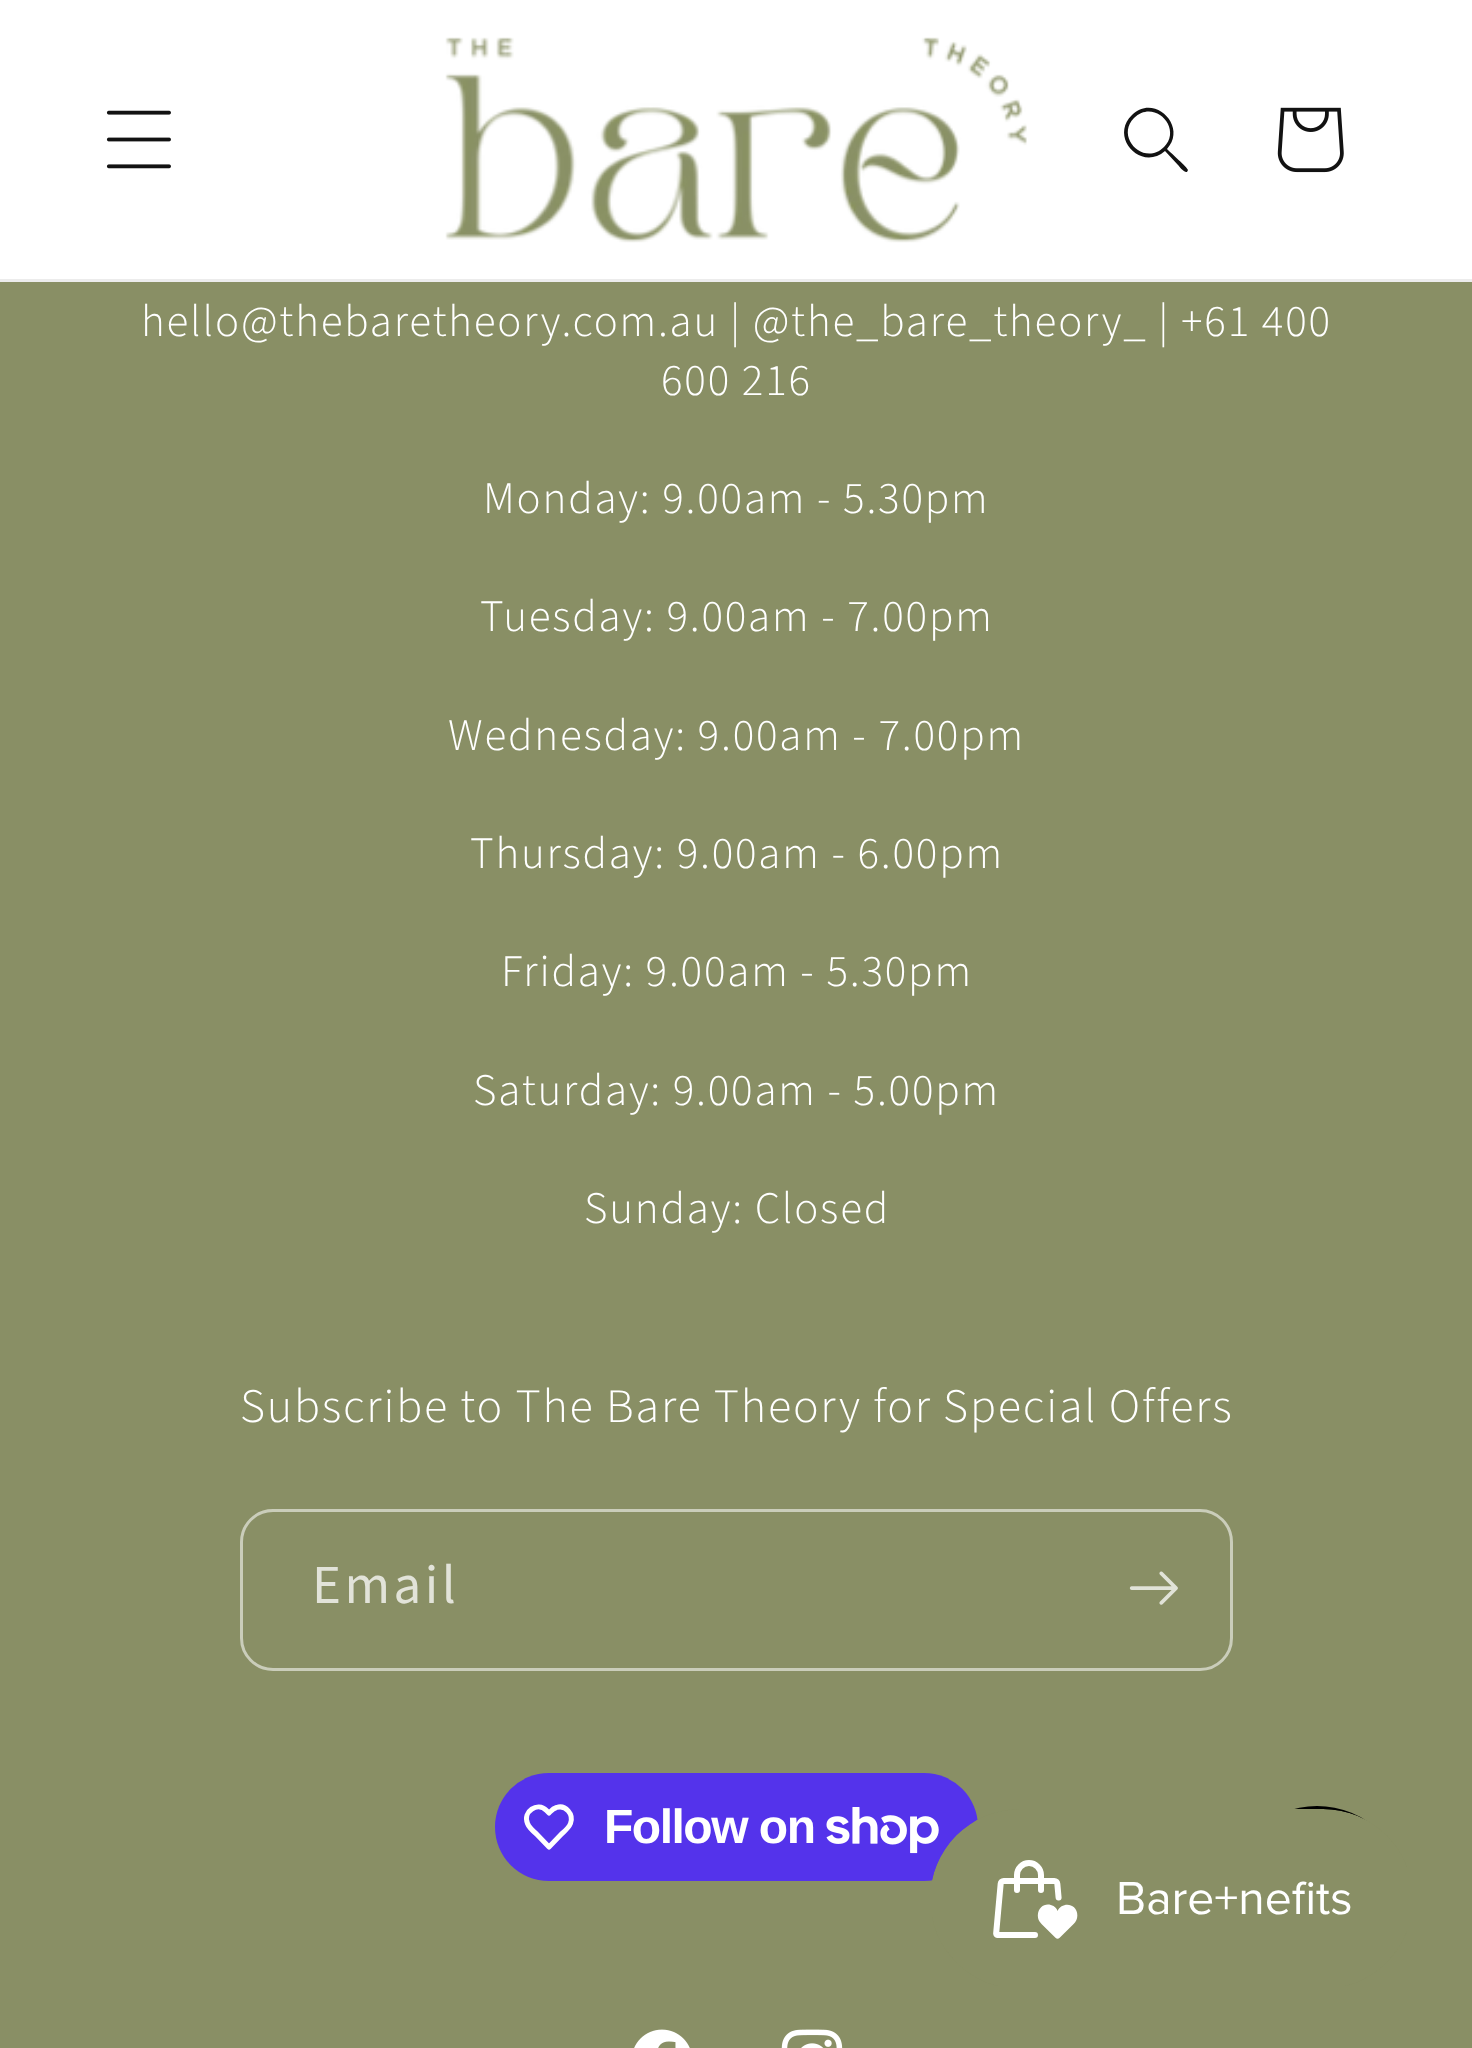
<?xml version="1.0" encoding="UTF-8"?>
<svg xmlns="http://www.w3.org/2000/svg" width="1472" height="2048">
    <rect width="100%" height="100%" fill="#898F65"/>
    <rect x="0" y="0" width="1472" height="279" fill="#FFFFFF"/>
    <rect x="0" y="279" width="1472" height="3" fill="#ECECEC"/>
    <image x="106" y="110" width="65" height="59" href="img_01.png"/>
    <image x="445" y="37" width="582" height="206" href="img_02.png"/>
    <path d="M 1164 147 C 1144 167 1115 137 1134 118 C 1154 98 1183 128 1164 147 Z M 1165 151 C 1141 172 1109 137 1132 115 C 1154 93 1188 126 1167 149 C 1170 152 1188 168 1188 170 L 1187 172 C 1184 173 1179 166 1178 165 Z" fill="#121212" fill-rule="evenodd"/>
    <image x="1277" y="107" width="67" height="66" href="img_03.png"/>
    <text x="141" y="336" font-family="Source Sans Pro" font-size="45" font-weight="300" letter-spacing="1.8" fill="#FFFFFF">hello@thebaretheory.com.au | @the_bare_theory_ | +61 400</text>
    <text x="661" y="395" font-family="Source Sans Pro" font-size="45" font-weight="300" letter-spacing="1.8" fill="#FFFFFF">600 216</text>
    <text x="483" y="513" font-family="Source Sans Pro" font-size="45" font-weight="300" letter-spacing="1.8" fill="#FFFFFF">Monday: 9.00am - 5.30pm</text>
    <text x="480" y="631" font-family="Source Sans Pro" font-size="45" font-weight="300" letter-spacing="1.8" fill="#FFFFFF">Tuesday: 9.00am - 7.00pm</text>
    <text x="448" y="750" font-family="Source Sans Pro" font-size="45" font-weight="300" letter-spacing="1.8" fill="#FFFFFF">Wednesday: 9.00am - 7.00pm</text>
    <text x="470" y="868" font-family="Source Sans Pro" font-size="45" font-weight="300" letter-spacing="1.8" fill="#FFFFFF">Thursday: 9.00am - 6.00pm</text>
    <text x="501" y="986" font-family="Source Sans Pro" font-size="45" font-weight="300" letter-spacing="1.8" fill="#FFFFFF">Friday: 9.00am - 5.30pm</text>
    <text x="473" y="1105" font-family="Source Sans Pro" font-size="45" font-weight="300" letter-spacing="1.8" fill="#FFFFFF">Saturday: 9.00am - 5.00pm</text>
    <text x="584" y="1223" font-family="Source Sans Pro" font-size="45" font-weight="300" letter-spacing="1.8" fill="#FFFFFF">Sunday: Closed</text>
    <text x="240" y="1422" font-family="Source Sans Pro" font-size="48" font-weight="300" letter-spacing="1.8" fill="#FFFFFF">Subscribe to The Bare Theory for Special Offers</text>
    <rect x="241.5" y="1510.5" width="990" height="159" rx="31.5" fill="none" stroke="#CACDBA" stroke-width="3"/>
    <text x="312" y="1603" font-family="Source Sans Pro" font-size="55" letter-spacing="3.5" fill="#E2E3D9">Email</text>
    <image x="1129" y="1571" width="49" height="34" href="img_04.png"/>
    <rect x="495" y="1773" width="483" height="108" rx="54" fill="#5433EB"/>
    <path d="M 546.5 1810.5 L 549 1813 C 551 1811 553 1808.5 556.5 1807.5 C 565.5 1804.5 574 1814 570.5 1823.5 C 569 1827.5 565 1831 561.5 1834 L 549 1847 L 536.5 1834 C 533 1831 529 1827.5 527.5 1823.5 C 522.5 1811.5 537.5 1801.5 546.5 1810.5 Z" fill="none" stroke="#FFFFFF" stroke-width="5" stroke-linejoin="round"/>
    <text x="604" y="1843" font-family="Liberation Sans" font-size="48" font-weight="700" letter-spacing="-1.5" fill="#FFFFFF">Follow on</text>
    <image x="826" y="1807" width="113" height="47" href="img_05.png"/>
    <image x="634" y="2029" width="56" height="19" href="img_06.png"/>
    <image x="781" y="2029" width="62" height="19" href="img_07.png"/>
    <circle cx="1317" cy="1896" r="90" fill="#000000"/>
    <image x="932" y="1809" width="475" height="177" href="img_08.png"/>
</svg>
